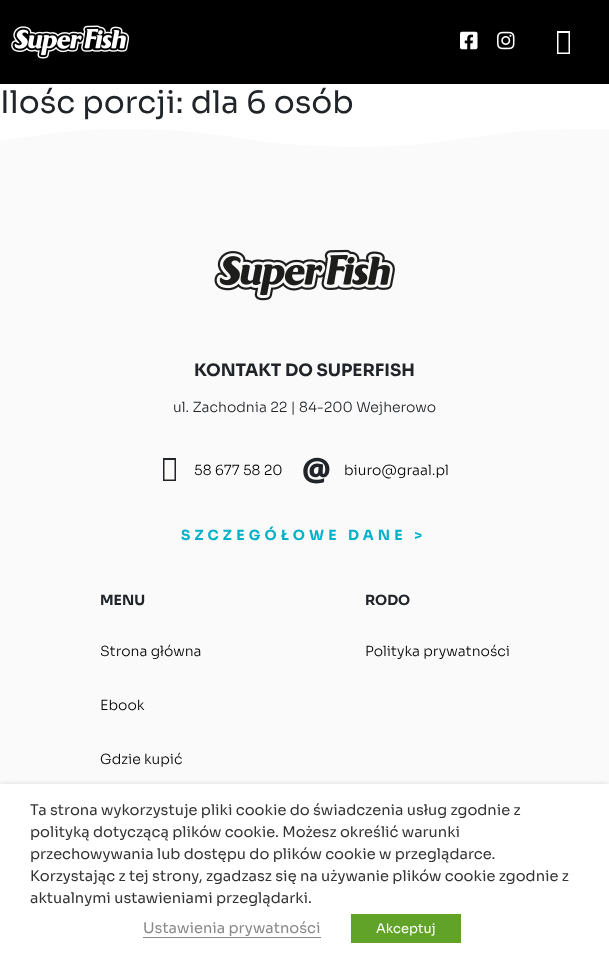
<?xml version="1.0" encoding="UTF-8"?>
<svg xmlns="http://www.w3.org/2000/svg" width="609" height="963">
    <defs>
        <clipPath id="clip1"><rect x="0" y="129" width="609" height="28"/></clipPath>
        <clipPath id="clip2"><rect x="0" y="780" width="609" height="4"/></clipPath>
        <filter id="blur1" x="-50%" y="-200%" width="200%" height="500%"><feGaussianBlur stdDeviation="5"/></filter>
    </defs>
    <rect width="100%" height="100%" fill="#FFFFFF"/>
    <rect x="0" y="0" width="609" height="84" fill="#000000"/>
    <image x="11" y="25" width="119" height="34" href="img_01.png"/>
    <image x="460" y="31" width="18" height="19" href="img_02.png"/>
    <image x="497" y="31" width="18" height="19" href="img_03.png"/>
    <path d="M 557 54 V 31 H 570 V 54 Z M 558.5 52.5 H 568.5 V 33 H 558.5 Z" fill="#FFFFFF"/>
    <text x="0" y="113" font-family="Sora" font-size="31.1" fill="#212529">Ilośc porcji: dla 6 osób</text>
    <rect x="0" y="157" width="609" height="627" fill="#FAFAFA"/>
    <g clip-path="url(#clip1)">
        <path d="M 579 129 C 554 129 530 130 505 133 L 432 143 C 403 146 374 147 346 147 C 319 146 293 145 266 142 C 238 138 210 133 182 131 C 143 128 103 128 64 132 C 43 134 21 138 0 141 V 157 H 609 V 129 H 579" fill="#FAFAFA"/>
    </g>
    <image x="214" y="249" width="181" height="52" href="img_04.png"/>
    <text x="194" y="376" font-family="Sora" font-size="17" font-weight="700" fill="#212529">KONTAKT DO SUPERFISH</text>
    <text x="173" y="412" font-family="Sora" font-size="14" font-weight="300" fill="#212529">ul. Zachodnia 22 | 84-200 Wejherowo</text>
    <path d="M 163 481 V 458 H 176 V 481 Z M 164.5 479.5 H 174.5 V 460 H 164.5 Z" fill="#212529"/>
    <text x="194" y="475" font-family="Sora" font-size="14" font-weight="300" fill="#000000">58 677 58 20</text>
    <text x="302" y="481" font-family="Noto Sans" font-size="32" font-weight="900" fill="#212529">@</text>
    <text x="344" y="475" font-family="Sora" font-size="14" font-weight="300" fill="#000000">biuro@graal.pl</text>
    <text x="181" y="540" font-family="Sora" font-size="14" font-weight="700" letter-spacing="4.25" fill="#00B1C9">SZCZEGÓŁOWE DANE &gt;</text>
    <text x="100" y="605" font-family="Sora" font-size="14" font-weight="700" fill="#212529">MENU</text>
    <text x="100" y="656" font-family="Sora" font-size="14" font-weight="300" fill="#000000">Strona główna</text>
    <text x="100" y="710" font-family="Sora" font-size="14" font-weight="300" fill="#000000">Ebook</text>
    <text x="100" y="764" font-family="Sora" font-size="14" font-weight="300" fill="#000000">Gdzie kupić</text>
    <text x="365" y="605" font-family="Sora" font-size="14" font-weight="700" fill="#212529">RODO</text>
    <text x="365" y="656" font-family="Sora" font-size="14" font-weight="300" fill="#000000">Polityka prywatności</text>
    <g clip-path="url(#clip2)">
        <rect x="0" y="789" width="609" height="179" fill="#000000" fill-opacity="0.5" filter="url(#blur1)"/>
    </g>
    <text font-family="Sora" font-size="14.65" fill="#333333">
        <tspan x="30" y="815">Ta strona wykorzystuje pliki cookie do świadczenia usług zgodnie z</tspan>
        <tspan x="30" y="837">polityką dotyczącą plików cookie. Możesz określić warunki</tspan>
        <tspan x="30" y="859">przechowywania lub dostępu do plików cookie w przeglądarce.</tspan>
        <tspan x="30" y="881">Korzystając z tej strony, zgadzasz się na używanie plików cookie zgodnie z</tspan>
        <tspan x="30" y="903">aktualnymi ustawieniami przeglądarki.</tspan>
    </text>
    <text x="143" y="933" font-family="Sora" font-size="14.65" fill="#898888">Ustawienia prywatności</text>
    <rect x="143" y="937" width="178" height="1" fill="#898888"/>
    <rect x="351" y="914" width="110" height="29" fill="#61A229"/>
    <text x="376" y="933" font-family="Sora" font-size="13" fill="#FFFFFF">Akceptuj</text>
</svg>
